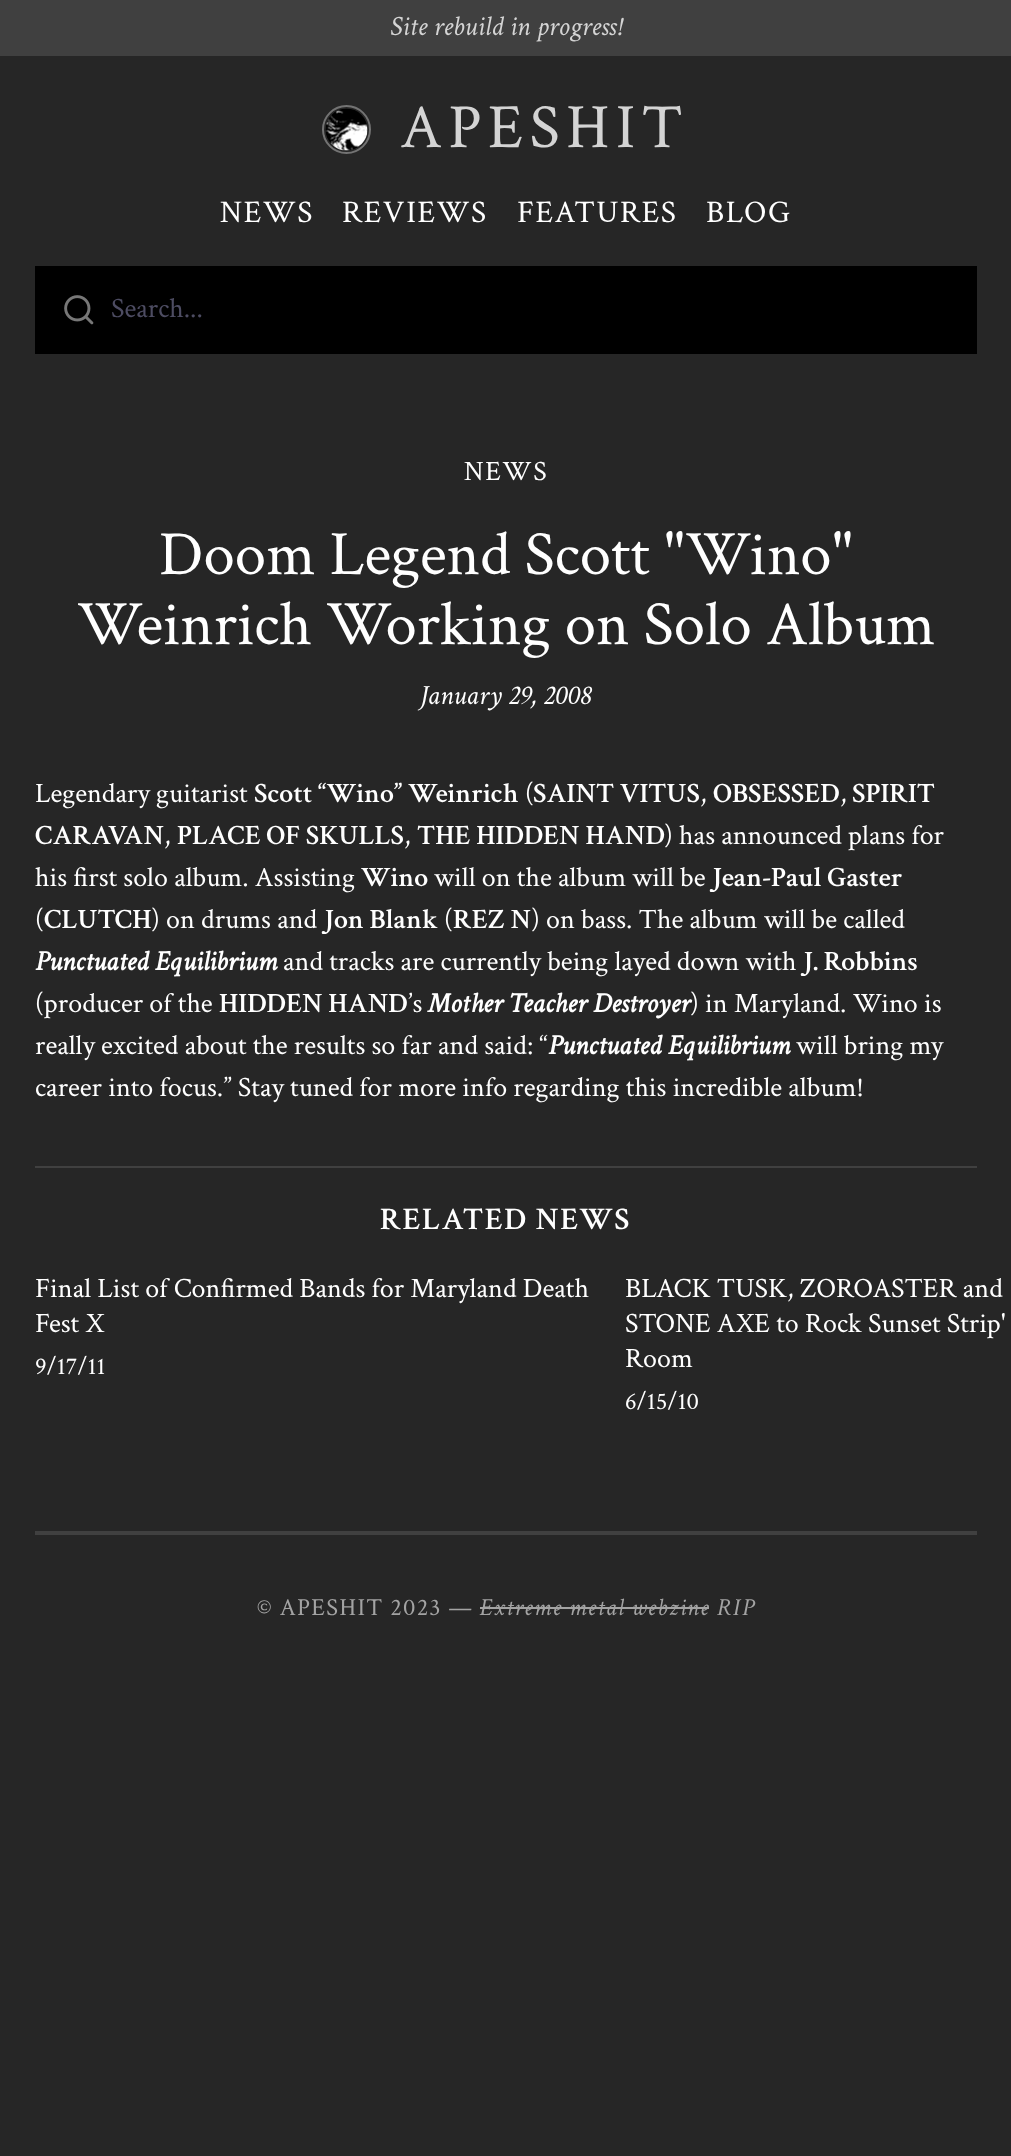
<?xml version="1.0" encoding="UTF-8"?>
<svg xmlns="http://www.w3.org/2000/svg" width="1011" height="2156">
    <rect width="100%" height="100%" fill="#262626"/>
    <rect x="0" y="0" width="1011" height="56" fill="#404040"/>
    <text x="390" y="35" font-family="Crimson Text" font-size="28" font-style="italic" fill="#D4D4D4">Site rebuild in progress!</text>
    <circle cx="346.5" cy="129.5" r="23.5" fill="none" stroke="#737373" stroke-width="2"/>
    <image x="325" y="108" width="43" height="43" href="img_01.png"/>
    <text x="400" y="147" font-family="Crimson Text" font-size="63" letter-spacing="6.25" fill="#D4D4D4">APESHIT</text>
    <text x="220" y="222" font-family="Crimson Text" font-size="31.5" letter-spacing="1.5" fill="#FFFFFF">NEWS</text>
    <text x="342" y="222" font-family="Crimson Text" font-size="31.5" letter-spacing="1.5" fill="#FFFFFF">REVIEWS</text>
    <text x="517" y="222" font-family="Crimson Text" font-size="31.5" letter-spacing="1.5" fill="#FFFFFF">FEATURES</text>
    <text x="706" y="222" font-family="Crimson Text" font-size="31.5" letter-spacing="1.5" fill="#FFFFFF">BLOG</text>
    <rect x="35" y="266" width="942" height="88" fill="#000000"/>
    <image x="64" y="295" width="30" height="30" href="img_02.png"/>
    <text x="111" y="317" font-family="Crimson Text" font-size="28" fill="#4D4C62">Search...</text>
    <text x="464" y="480" font-family="Crimson Text" font-size="28" letter-spacing="1.5" fill="#FFFFFF">NEWS</text>
    <text x="159" y="574" font-family="Crimson Text" font-size="63" fill="#FFFFFF">Doom Legend Scott "Wino"</text>
    <text x="77" y="644" font-family="Crimson Text" font-size="63" fill="#FFFFFF">Weinrich Working on Solo Album</text>
    <text x="420" y="704" font-family="Crimson Text" font-size="28" font-style="italic" fill="#FFFFFF">January 29, 2008</text>
    <text x="35" y="802" font-family="Crimson Text" font-size="28" fill="#FFFFFF">Legendary guitarist</text>
    <text x="254" y="802" font-family="Crimson Text" font-size="28" font-weight="600" fill="#FFFFFF">Scott “Wino” Weinrich</text>
    <text x="525" y="802" font-family="Crimson Text" font-size="28" fill="#FFFFFF">(</text>
    <text x="533" y="802" font-family="Crimson Text" font-size="28" font-weight="600" fill="#FFFFFF">SAINT VITUS</text>
    <text x="700" y="802" font-family="Crimson Text" font-size="28" fill="#FFFFFF">,</text>
    <text x="713" y="802" font-family="Crimson Text" font-size="28" font-weight="600" fill="#FFFFFF">OBSESSED</text>
    <text x="840" y="802" font-family="Crimson Text" font-size="28" fill="#FFFFFF">,</text>
    <text x="852" y="802" font-family="Crimson Text" font-size="28" font-weight="600" fill="#FFFFFF">SPIRIT</text>
    <text x="35" y="844" font-family="Crimson Text" font-size="28" font-weight="600" fill="#FFFFFF">CARAVAN</text>
    <text x="164" y="844" font-family="Crimson Text" font-size="28" fill="#FFFFFF">,</text>
    <text x="177" y="844" font-family="Crimson Text" font-size="28" font-weight="600" fill="#FFFFFF">PLACE OF SKULLS</text>
    <text x="404" y="844" font-family="Crimson Text" font-size="28" fill="#FFFFFF">,</text>
    <text x="417" y="844" font-family="Crimson Text" font-size="28" font-weight="600" fill="#FFFFFF">THE HIDDEN HAND</text>
    <text x="664" y="844" font-family="Crimson Text" font-size="28" fill="#FFFFFF">) has announced plans for</text>
    <text x="35" y="886" font-family="Crimson Text" font-size="28" fill="#FFFFFF">his first solo album. Assisting</text>
    <text x="361" y="886" font-family="Crimson Text" font-size="28" font-weight="600" fill="#FFFFFF">Wino</text>
    <text x="434" y="886" font-family="Crimson Text" font-size="28" fill="#FFFFFF">will on the album will be</text>
    <text x="712" y="886" font-family="Crimson Text" font-size="28" font-weight="600" fill="#FFFFFF">Jean-Paul Gaster</text>
    <text x="35" y="928" font-family="Crimson Text" font-size="28" fill="#FFFFFF">(</text>
    <text x="44" y="928" font-family="Crimson Text" font-size="28" font-weight="600" fill="#FFFFFF">CLUTCH</text>
    <text x="151" y="928" font-family="Crimson Text" font-size="28" fill="#FFFFFF">) on drums and</text>
    <text x="324" y="928" font-family="Crimson Text" font-size="28" font-weight="600" fill="#FFFFFF">Jon Blank</text>
    <text x="444" y="928" font-family="Crimson Text" font-size="28" fill="#FFFFFF">(</text>
    <text x="453" y="928" font-family="Crimson Text" font-size="28" font-weight="600" fill="#FFFFFF">REZ N</text>
    <text x="531" y="928" font-family="Crimson Text" font-size="28" fill="#FFFFFF">) on bass. The album will be called</text>
    <text x="35" y="970" font-family="Crimson Text" font-size="28" font-weight="700" font-style="italic" fill="#FFFFFF">Punctuated Equilibrium</text>
    <text x="283" y="970" font-family="Crimson Text" font-size="28" fill="#FFFFFF">and tracks are currently being layed down with</text>
    <text x="803" y="970" font-family="Crimson Text" font-size="28" font-weight="600" fill="#FFFFFF">J. Robbins</text>
    <text x="35" y="1012" font-family="Crimson Text" font-size="28" fill="#FFFFFF">(producer of the</text>
    <text x="219" y="1012" font-family="Crimson Text" font-size="28" font-weight="600" fill="#FFFFFF">HIDDEN HAND</text>
    <text x="408" y="1012" font-family="Crimson Text" font-size="28" fill="#FFFFFF">’s</text>
    <text x="428" y="1012" font-family="Crimson Text" font-size="28" font-weight="700" font-style="italic" fill="#FFFFFF">Mother Teacher Destroyer</text>
    <text x="690" y="1012" font-family="Crimson Text" font-size="28" fill="#FFFFFF">) in Maryland. Wino is</text>
    <text x="35" y="1054" font-family="Crimson Text" font-size="28" fill="#FFFFFF">really excited about the results so far and said: “</text>
    <text x="548" y="1054" font-family="Crimson Text" font-size="28" font-weight="700" font-style="italic" fill="#FFFFFF">Punctuated Equilibrium</text>
    <text x="796" y="1054" font-family="Crimson Text" font-size="28" fill="#FFFFFF">will bring my</text>
    <text x="35" y="1096" font-family="Crimson Text" font-size="28" fill="#FFFFFF">career into focus.” Stay tuned for more info regarding this incredible album!</text>
    <rect x="35" y="1166" width="942" height="2" fill="#404040"/>
    <text x="380" y="1229" font-family="Crimson Text" font-size="31.5" font-weight="600" letter-spacing="1.5" fill="#FFFFFF">RELATED NEWS</text>
    <text font-family="Crimson Text" font-size="28" fill="#FFFFFF">
        <tspan x="35" y="1297">Final List of Confirmed Bands for Maryland Death</tspan>
        <tspan x="35" y="1332">Fest X</tspan>
    </text>
    <text x="35" y="1374" font-family="Crimson Text" font-size="24.5" fill="#FFFFFF">9/17/11</text>
    <text font-family="Crimson Text" font-size="28" fill="#FFFFFF">
        <tspan x="625" y="1297">BLACK TUSK, ZOROASTER and</tspan>
        <tspan x="625" y="1332">STONE AXE to Rock Sunset Strip'</tspan>
        <tspan x="625" y="1367">Room</tspan>
    </text>
    <text x="625" y="1409" font-family="Crimson Text" font-size="24.5" fill="#FFFFFF">6/15/10</text>
    <rect x="35" y="1531" width="942" height="4" fill="#404040"/>
    <text x="257" y="1615" font-family="Crimson Text" font-size="24.5" letter-spacing="1.25" fill="#A3A3A3">© APESHIT 2023 —</text>
    <text x="479" y="1615" font-family="Crimson Text" font-size="24.5" font-style="italic" letter-spacing="1.25" fill="#A3A3A3">Extreme metal webzine RIP</text>
    <rect x="480" y="1607" width="229" height="2" fill="#A3A3A3"/>
</svg>
